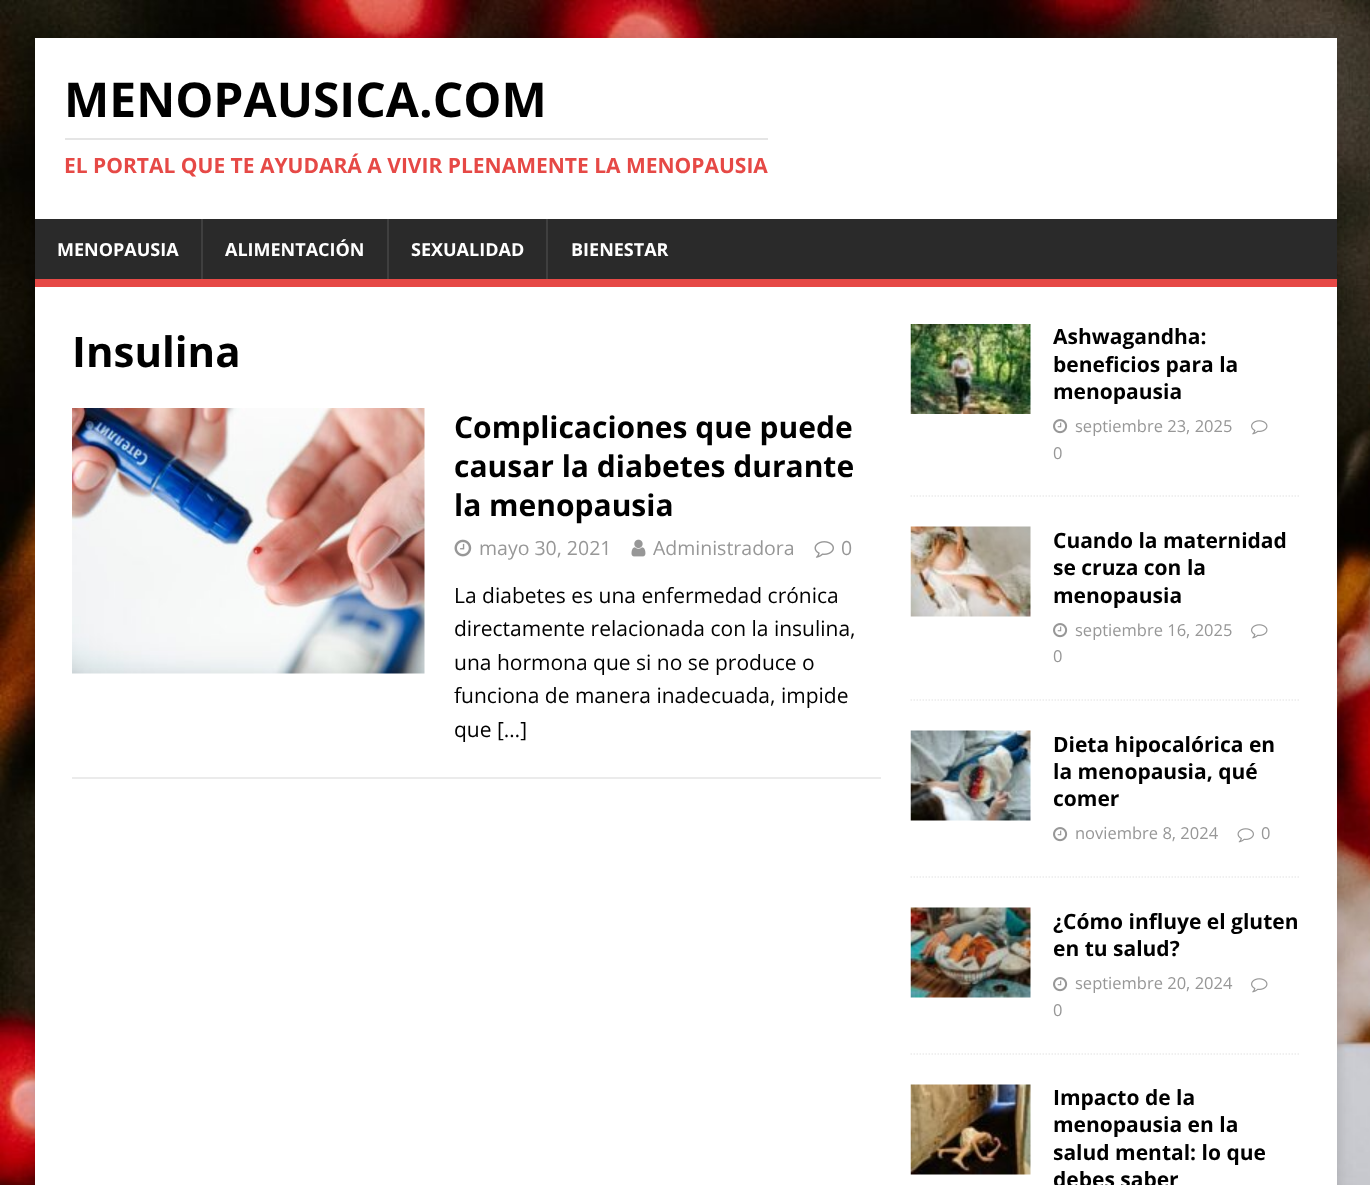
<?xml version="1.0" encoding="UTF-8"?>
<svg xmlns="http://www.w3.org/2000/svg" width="1370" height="1185">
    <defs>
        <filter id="blur1" x="-50%" y="-200%" width="200%" height="500%"><feGaussianBlur stdDeviation="7.5"/></filter>
    </defs>
    <rect width="100%" height="100%" fill="#FFFFFF"/>
    <image x="0" y="0" width="1370" height="1185" href="img_01.png"/>
    <rect x="35" y="38" width="1302" height="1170" fill="#323232" fill-opacity="0.17" filter="url(#blur1)"/>
    <rect x="35" y="38" width="1302" height="181" fill="#FFFFFF"/>
    <text x="64" y="117" font-family="Open Sans" font-size="48" font-weight="700" fill="#000000">MENOPAUSICA.COM</text>
    <rect x="65" y="138" width="703" height="2" fill="#E5E5E5"/>
    <text x="64" y="173" font-family="Open Sans" font-size="21" font-weight="700" fill="#E64946">EL PORTAL QUE TE AYUDARÁ A VIVIR PLENAMENTE LA MENOPAUSIA</text>
    <rect x="35" y="219" width="1302" height="60" fill="#2A2A2A"/>
    <rect x="35" y="279" width="1302" height="8" fill="#E64946"/>
    <text x="57" y="256" font-family="Open Sans" font-size="18" font-weight="700" fill="#FFFFFF">MENOPAUSIA</text>
    <rect x="201" y="219" width="2" height="60" fill="#3F3F3F"/>
    <text x="225" y="256" font-family="Open Sans" font-size="18" font-weight="700" fill="#FFFFFF">ALIMENTACIÓN</text>
    <rect x="387" y="219" width="2" height="60" fill="#3F3F3F"/>
    <text x="411" y="256" font-family="Open Sans" font-size="18" font-weight="700" fill="#FFFFFF">SEXUALIDAD</text>
    <rect x="546" y="219" width="2" height="60" fill="#3F3F3F"/>
    <text x="571" y="256" font-family="Open Sans" font-size="18" font-weight="700" fill="#FFFFFF">BIENESTAR</text>
    <rect x="35" y="287" width="1302" height="898" fill="#FFFFFF"/>
    <text x="72" y="367" font-family="Open Sans" font-size="42" font-weight="700" fill="#000000">Insulina</text>
    <rect x="72" y="777" width="809" height="2" fill="#EBEBEB"/>
    <image x="72" y="408" width="353" height="266" href="img_02.png"/>
    <text font-family="Open Sans" font-size="30" font-weight="700" fill="#000000">
        <tspan x="454" y="438">Complicaciones que puede</tspan>
        <tspan x="454" y="477">causar la diabetes durante</tspan>
        <tspan x="454" y="516">la menopausia</tspan>
    </text>
    <image x="454" y="539" width="18" height="18" href="img_03.png"/>
    <text x="479" y="555" font-family="Open Sans" font-size="19.5" fill="#979797">mayo 30, 2021</text>
    <image x="631" y="539" width="15" height="18" href="img_04.png"/>
    <text x="653" y="555" font-family="Open Sans" font-size="19.5" fill="#979797">Administradora</text>
    <image x="814" y="541" width="20" height="17" href="img_05.png"/>
    <text x="841" y="555" font-family="Open Sans" font-size="19.5" fill="#979797">0</text>
    <text font-family="Open Sans" font-size="21" fill="#000000">
        <tspan x="454" y="603">La diabetes es una enfermedad crónica</tspan>
        <tspan x="454" y="636">directamente relacionada con la insulina,</tspan>
        <tspan x="454" y="670">una hormona que si no se produce o</tspan>
        <tspan x="454" y="703">funciona de manera inadecuada, impide</tspan>
        <tspan x="454" y="737">que […]</tspan>
    </text>
    <path d="M 910.5 496 H 1299" fill="none" stroke="#EBEBEB" stroke-width="1.5" stroke-dasharray="1.5 1.5"/>
    <image x="910" y="324" width="121" height="90" href="img_06.png"/>
    <text font-family="Open Sans" font-size="21" font-weight="700" fill="#000000">
        <tspan x="1053" y="344">Ashwagandha:</tspan>
        <tspan x="1053" y="372">beneficios para la</tspan>
        <tspan x="1053" y="399">menopausia</tspan>
    </text>
    <image x="1053" y="419" width="15" height="15" href="img_07.png"/>
    <text x="1075" y="432" font-family="Open Sans" font-size="16.5" fill="#979797">septiembre 23, 2025</text>
    <image x="1251" y="420" width="17" height="15" href="img_08.png"/>
    <text x="1053" y="459" font-family="Open Sans" font-size="16.5" fill="#979797">0</text>
    <path d="M 910.5 700 H 1299" fill="none" stroke="#EBEBEB" stroke-width="1.5" stroke-dasharray="1.5 1.5"/>
    <image x="910" y="526" width="121" height="91" href="img_09.png"/>
    <text font-family="Open Sans" font-size="21" font-weight="700" fill="#000000">
        <tspan x="1053" y="548">Cuando la maternidad</tspan>
        <tspan x="1053" y="575">se cruza con la</tspan>
        <tspan x="1053" y="603">menopausia</tspan>
    </text>
    <image x="1053" y="623" width="15" height="15" href="img_07.png"/>
    <text x="1075" y="636" font-family="Open Sans" font-size="16.5" fill="#979797">septiembre 16, 2025</text>
    <image x="1251" y="624" width="17" height="15" href="img_08.png"/>
    <text x="1053" y="662" font-family="Open Sans" font-size="16.5" fill="#979797">0</text>
    <path d="M 910.5 877 H 1299" fill="none" stroke="#EBEBEB" stroke-width="1.5" stroke-dasharray="1.5 1.5"/>
    <image x="910" y="730" width="121" height="91" href="img_10.png"/>
    <text font-family="Open Sans" font-size="21" font-weight="700" fill="#000000">
        <tspan x="1053" y="752">Dieta hipocalórica en</tspan>
        <tspan x="1053" y="779">la menopausia, qué</tspan>
        <tspan x="1053" y="806">comer</tspan>
    </text>
    <image x="1053" y="827" width="15" height="15" href="img_07.png"/>
    <text x="1075" y="839" font-family="Open Sans" font-size="16.5" fill="#979797">noviembre 8, 2024</text>
    <image x="1237" y="828" width="17" height="15" href="img_11.png"/>
    <text x="1261" y="839" font-family="Open Sans" font-size="16.5" fill="#979797">0</text>
    <path d="M 910.5 1054 H 1299" fill="none" stroke="#EBEBEB" stroke-width="1.5" stroke-dasharray="1.5 1.5"/>
    <image x="910" y="907" width="121" height="91" href="img_12.png"/>
    <text font-family="Open Sans" font-size="21" font-weight="700" fill="#000000">
        <tspan x="1053" y="929">¿Cómo influye el gluten</tspan>
        <tspan x="1053" y="956">en tu salud?</tspan>
    </text>
    <image x="1053" y="977" width="15" height="15" href="img_07.png"/>
    <text x="1075" y="989" font-family="Open Sans" font-size="16.5" fill="#979797">septiembre 20, 2024</text>
    <image x="1251" y="978" width="17" height="15" href="img_08.png"/>
    <text x="1053" y="1016" font-family="Open Sans" font-size="16.5" fill="#979797">0</text>
    <image x="910" y="1084" width="121" height="91" href="img_13.png"/>
    <text font-family="Open Sans" font-size="21" font-weight="700" fill="#000000">
        <tspan x="1053" y="1105">Impacto de la</tspan>
        <tspan x="1053" y="1132">menopausia en la</tspan>
        <tspan x="1053" y="1160">salud mental: lo que</tspan>
        <tspan x="1053" y="1187">debes saber</tspan>
    </text>
</svg>
